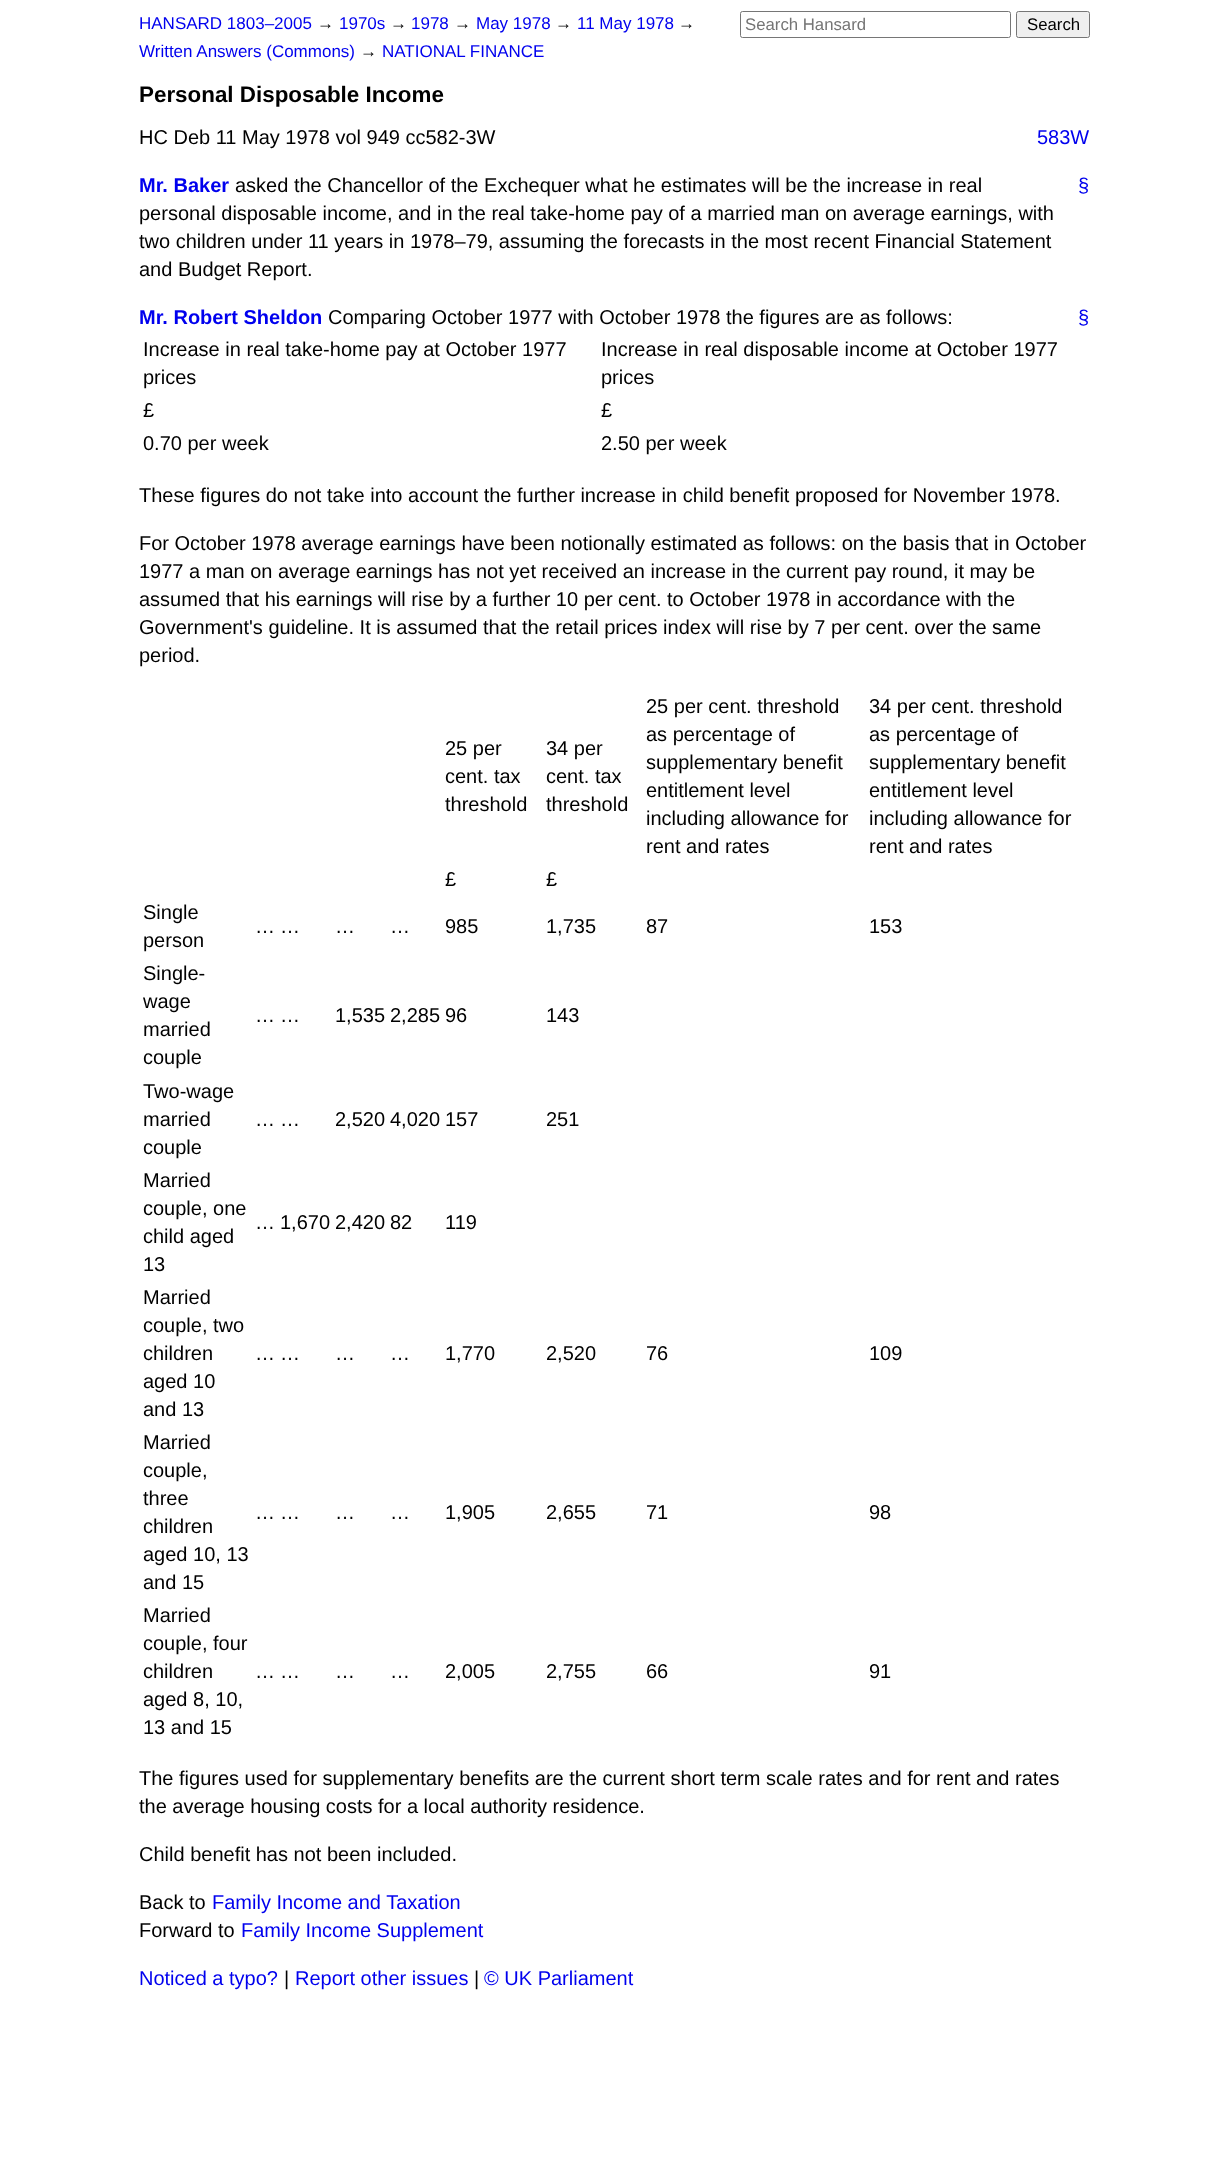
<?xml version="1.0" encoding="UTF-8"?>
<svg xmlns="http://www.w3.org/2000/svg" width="1228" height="2166">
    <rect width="100%" height="100%" fill="#FFFFFF"/>
    <text x="139" y="29" font-family="Liberation Sans" font-size="17" fill="#0000EE">HANSARD 1803–2005</text>
    <text x="317" y="29" font-family="Liberation Sans" font-size="17" fill="#000000">→</text>
    <text x="339" y="29" font-family="Liberation Sans" font-size="17" fill="#0000EE">1970s</text>
    <text x="390" y="29" font-family="Liberation Sans" font-size="17" fill="#000000">→</text>
    <text x="411" y="29" font-family="Liberation Sans" font-size="17" fill="#0000EE">1978</text>
    <text x="454" y="29" font-family="Liberation Sans" font-size="17" fill="#000000">→</text>
    <text x="476" y="29" font-family="Liberation Sans" font-size="17" fill="#0000EE">May 1978</text>
    <text x="555" y="29" font-family="Liberation Sans" font-size="17" fill="#000000">→</text>
    <text x="577" y="29" font-family="Liberation Sans" font-size="17" fill="#0000EE">11 May 1978</text>
    <text x="678" y="29" font-family="Liberation Sans" font-size="17" fill="#000000">→</text>
    <text x="139" y="57" font-family="Liberation Sans" font-size="17" fill="#0000EE">Written Answers (Commons)</text>
    <text x="360" y="57" font-family="Liberation Sans" font-size="17" fill="#000000">→</text>
    <text x="382" y="57" font-family="Liberation Sans" font-size="17" fill="#0000EE">NATIONAL FINANCE</text>
    <rect x="740.5" y="11.5" width="270" height="26" rx="2" fill="none" stroke="#767676"/>
    <text x="745" y="30" font-family="Liberation Sans" font-size="16.75" fill="#757575">Search Hansard</text>
    <rect x="1016.5" y="11.5" width="73" height="26" rx="2" fill="#EFEFEF" stroke="#767676"/>
    <text x="1027" y="30" font-family="Liberation Sans" font-size="16.75" fill="#000000">Search</text>
    <text x="139" y="102" font-family="Liberation Sans" font-size="22.4" font-weight="700" fill="#000000">Personal Disposable Income</text>
    <text x="139" y="144" font-family="Liberation Sans" font-size="20" fill="#000000">HC Deb 11 May 1978 vol 949 cc582-3W</text>
    <text x="1037" y="144" font-family="Liberation Sans" font-size="20" fill="#0000EE">583W</text>
    <text x="139" y="192" font-family="Liberation Sans" font-size="20" font-weight="700" fill="#0000EE">Mr. Baker</text>
    <text x="235" y="192" font-family="Liberation Sans" font-size="20" fill="#000000">asked the Chancellor of the Exchequer what he estimates will be the increase in real</text>
    <text x="1078" y="192" font-family="Liberation Sans" font-size="20" fill="#0000EE">§</text>
    <text font-family="Liberation Sans" font-size="20" fill="#000000">
        <tspan x="139" y="220">personal disposable income, and in the real take-home pay of a married man on average earnings, with</tspan>
        <tspan x="139" y="248">two children under 11 years in 1978–79, assuming the forecasts in the most recent Financial Statement</tspan>
        <tspan x="139" y="276">and Budget Report.</tspan>
    </text>
    <text x="139" y="324" font-family="Liberation Sans" font-size="20" font-weight="700" fill="#0000EE">Mr. Robert Sheldon</text>
    <text x="328" y="324" font-family="Liberation Sans" font-size="20" fill="#000000">Comparing October 1977 with October 1978 the figures are as follows:</text>
    <text x="1078" y="324" font-family="Liberation Sans" font-size="20" fill="#0000EE">§</text>
    <text font-family="Liberation Sans" font-size="20" fill="#000000">
        <tspan x="143" y="356">Increase in real take-home pay at October 1977</tspan>
        <tspan x="143" y="384">prices</tspan>
    </text>
    <text font-family="Liberation Sans" font-size="20" fill="#000000">
        <tspan x="601" y="356">Increase in real disposable income at October 1977</tspan>
        <tspan x="601" y="384">prices</tspan>
    </text>
    <text x="143" y="417" font-family="Liberation Sans" font-size="20" fill="#000000">£</text>
    <text x="601" y="417" font-family="Liberation Sans" font-size="20" fill="#000000">£</text>
    <text x="143" y="450" font-family="Liberation Sans" font-size="20" fill="#000000">0.70 per week</text>
    <text x="601" y="450" font-family="Liberation Sans" font-size="20" fill="#000000">2.50 per week</text>
    <text x="139" y="502" font-family="Liberation Sans" font-size="20" fill="#000000">These figures do not take into account the further increase in child benefit proposed for November 1978.</text>
    <text font-family="Liberation Sans" font-size="20" fill="#000000">
        <tspan x="139" y="550">For October 1978 average earnings have been notionally estimated as follows: on the basis that in October</tspan>
        <tspan x="139" y="578">1977 a man on average earnings has not yet received an increase in the current pay round, it may be</tspan>
        <tspan x="139" y="606">assumed that his earnings will rise by a further 10 per cent. to October 1978 in accordance with the</tspan>
        <tspan x="139" y="634">Government's guideline. It is assumed that the retail prices index will rise by 7 per cent. over the same</tspan>
        <tspan x="139" y="662">period.</tspan>
    </text>
    <text font-family="Liberation Sans" font-size="20" fill="#000000">
        <tspan x="445" y="755">25 per</tspan>
        <tspan x="445" y="783">cent. tax</tspan>
        <tspan x="445" y="811">threshold</tspan>
    </text>
    <text font-family="Liberation Sans" font-size="20" fill="#000000">
        <tspan x="546" y="755">34 per</tspan>
        <tspan x="546" y="783">cent. tax</tspan>
        <tspan x="546" y="811">threshold</tspan>
    </text>
    <text font-family="Liberation Sans" font-size="20" fill="#000000">
        <tspan x="646" y="713">25 per cent. threshold</tspan>
        <tspan x="646" y="741">as percentage of</tspan>
        <tspan x="646" y="769">supplementary benefit</tspan>
        <tspan x="646" y="797">entitlement level</tspan>
        <tspan x="646" y="825">including allowance for</tspan>
        <tspan x="646" y="853">rent and rates</tspan>
    </text>
    <text font-family="Liberation Sans" font-size="20" fill="#000000">
        <tspan x="869" y="713">34 per cent. threshold</tspan>
        <tspan x="869" y="741">as percentage of</tspan>
        <tspan x="869" y="769">supplementary benefit</tspan>
        <tspan x="869" y="797">entitlement level</tspan>
        <tspan x="869" y="825">including allowance for</tspan>
        <tspan x="869" y="853">rent and rates</tspan>
    </text>
    <text x="445" y="886" font-family="Liberation Sans" font-size="20" fill="#000000">£</text>
    <text x="546" y="886" font-family="Liberation Sans" font-size="20" fill="#000000">£</text>
    <text font-family="Liberation Sans" font-size="20" fill="#000000">
        <tspan x="143" y="919">Single</tspan>
        <tspan x="143" y="947">person</tspan>
    </text>
    <text x="255" y="933" font-family="Liberation Sans" font-size="20" fill="#000000">…</text>
    <text x="280" y="933" font-family="Liberation Sans" font-size="20" fill="#000000">…</text>
    <text x="335" y="933" font-family="Liberation Sans" font-size="20" fill="#000000">…</text>
    <text x="390" y="933" font-family="Liberation Sans" font-size="20" fill="#000000">…</text>
    <text x="445" y="933" font-family="Liberation Sans" font-size="20" fill="#000000">985</text>
    <text x="546" y="933" font-family="Liberation Sans" font-size="20" fill="#000000">1,735</text>
    <text x="646" y="933" font-family="Liberation Sans" font-size="20" fill="#000000">87</text>
    <text x="869" y="933" font-family="Liberation Sans" font-size="20" fill="#000000">153</text>
    <text font-family="Liberation Sans" font-size="20" fill="#000000">
        <tspan x="143" y="980">Single-</tspan>
        <tspan x="143" y="1008">wage</tspan>
        <tspan x="143" y="1036">married</tspan>
        <tspan x="143" y="1064">couple</tspan>
    </text>
    <text x="255" y="1022" font-family="Liberation Sans" font-size="20" fill="#000000">…</text>
    <text x="280" y="1022" font-family="Liberation Sans" font-size="20" fill="#000000">…</text>
    <text x="335" y="1022" font-family="Liberation Sans" font-size="20" fill="#000000">1,535</text>
    <text x="390" y="1022" font-family="Liberation Sans" font-size="20" fill="#000000">2,285</text>
    <text x="445" y="1022" font-family="Liberation Sans" font-size="20" fill="#000000">96</text>
    <text x="546" y="1022" font-family="Liberation Sans" font-size="20" fill="#000000">143</text>
    <text font-family="Liberation Sans" font-size="20" fill="#000000">
        <tspan x="143" y="1098">Two-wage</tspan>
        <tspan x="143" y="1126">married</tspan>
        <tspan x="143" y="1154">couple</tspan>
    </text>
    <text x="255" y="1126" font-family="Liberation Sans" font-size="20" fill="#000000">…</text>
    <text x="280" y="1126" font-family="Liberation Sans" font-size="20" fill="#000000">…</text>
    <text x="335" y="1126" font-family="Liberation Sans" font-size="20" fill="#000000">2,520</text>
    <text x="390" y="1126" font-family="Liberation Sans" font-size="20" fill="#000000">4,020</text>
    <text x="445" y="1126" font-family="Liberation Sans" font-size="20" fill="#000000">157</text>
    <text x="546" y="1126" font-family="Liberation Sans" font-size="20" fill="#000000">251</text>
    <text font-family="Liberation Sans" font-size="20" fill="#000000">
        <tspan x="143" y="1187">Married</tspan>
        <tspan x="143" y="1215">couple, one</tspan>
        <tspan x="143" y="1243">child aged</tspan>
        <tspan x="143" y="1271">13</tspan>
    </text>
    <text x="255" y="1229" font-family="Liberation Sans" font-size="20" fill="#000000">…</text>
    <text x="280" y="1229" font-family="Liberation Sans" font-size="20" fill="#000000">1,670</text>
    <text x="335" y="1229" font-family="Liberation Sans" font-size="20" fill="#000000">2,420</text>
    <text x="390" y="1229" font-family="Liberation Sans" font-size="20" fill="#000000">82</text>
    <text x="445" y="1229" font-family="Liberation Sans" font-size="20" fill="#000000">119</text>
    <text font-family="Liberation Sans" font-size="20" fill="#000000">
        <tspan x="143" y="1304">Married</tspan>
        <tspan x="143" y="1332">couple, two</tspan>
        <tspan x="143" y="1360">children</tspan>
        <tspan x="143" y="1388">aged 10</tspan>
        <tspan x="143" y="1416">and 13</tspan>
    </text>
    <text x="255" y="1360" font-family="Liberation Sans" font-size="20" fill="#000000">…</text>
    <text x="280" y="1360" font-family="Liberation Sans" font-size="20" fill="#000000">…</text>
    <text x="335" y="1360" font-family="Liberation Sans" font-size="20" fill="#000000">…</text>
    <text x="390" y="1360" font-family="Liberation Sans" font-size="20" fill="#000000">…</text>
    <text x="445" y="1360" font-family="Liberation Sans" font-size="20" fill="#000000">1,770</text>
    <text x="546" y="1360" font-family="Liberation Sans" font-size="20" fill="#000000">2,520</text>
    <text x="646" y="1360" font-family="Liberation Sans" font-size="20" fill="#000000">76</text>
    <text x="869" y="1360" font-family="Liberation Sans" font-size="20" fill="#000000">109</text>
    <text font-family="Liberation Sans" font-size="20" fill="#000000">
        <tspan x="143" y="1449">Married</tspan>
        <tspan x="143" y="1477">couple,</tspan>
        <tspan x="143" y="1505">three</tspan>
        <tspan x="143" y="1533">children</tspan>
        <tspan x="143" y="1561">aged 10, 13</tspan>
        <tspan x="143" y="1589">and 15</tspan>
    </text>
    <text x="255" y="1519" font-family="Liberation Sans" font-size="20" fill="#000000">…</text>
    <text x="280" y="1519" font-family="Liberation Sans" font-size="20" fill="#000000">…</text>
    <text x="335" y="1519" font-family="Liberation Sans" font-size="20" fill="#000000">…</text>
    <text x="390" y="1519" font-family="Liberation Sans" font-size="20" fill="#000000">…</text>
    <text x="445" y="1519" font-family="Liberation Sans" font-size="20" fill="#000000">1,905</text>
    <text x="546" y="1519" font-family="Liberation Sans" font-size="20" fill="#000000">2,655</text>
    <text x="646" y="1519" font-family="Liberation Sans" font-size="20" fill="#000000">71</text>
    <text x="869" y="1519" font-family="Liberation Sans" font-size="20" fill="#000000">98</text>
    <text font-family="Liberation Sans" font-size="20" fill="#000000">
        <tspan x="143" y="1622">Married</tspan>
        <tspan x="143" y="1650">couple, four</tspan>
        <tspan x="143" y="1678">children</tspan>
        <tspan x="143" y="1706">aged 8, 10,</tspan>
        <tspan x="143" y="1734">13 and 15</tspan>
    </text>
    <text x="255" y="1678" font-family="Liberation Sans" font-size="20" fill="#000000">…</text>
    <text x="280" y="1678" font-family="Liberation Sans" font-size="20" fill="#000000">…</text>
    <text x="335" y="1678" font-family="Liberation Sans" font-size="20" fill="#000000">…</text>
    <text x="390" y="1678" font-family="Liberation Sans" font-size="20" fill="#000000">…</text>
    <text x="445" y="1678" font-family="Liberation Sans" font-size="20" fill="#000000">2,005</text>
    <text x="546" y="1678" font-family="Liberation Sans" font-size="20" fill="#000000">2,755</text>
    <text x="646" y="1678" font-family="Liberation Sans" font-size="20" fill="#000000">66</text>
    <text x="869" y="1678" font-family="Liberation Sans" font-size="20" fill="#000000">91</text>
    <text font-family="Liberation Sans" font-size="20" fill="#000000">
        <tspan x="139" y="1785">The figures used for supplementary benefits are the current short term scale rates and for rent and rates</tspan>
        <tspan x="139" y="1813">the average housing costs for a local authority residence.</tspan>
    </text>
    <text x="139" y="1861" font-family="Liberation Sans" font-size="20" fill="#000000">Child benefit has not been included.</text>
    <text x="139" y="1909" font-family="Liberation Sans" font-size="20" fill="#000000">Back to</text>
    <text x="212" y="1909" font-family="Liberation Sans" font-size="20" fill="#0000EE">Family Income and Taxation</text>
    <text x="139" y="1937" font-family="Liberation Sans" font-size="20" fill="#000000">Forward to</text>
    <text x="241" y="1937" font-family="Liberation Sans" font-size="20" fill="#0000EE">Family Income Supplement</text>
    <text x="139" y="1985" font-family="Liberation Sans" font-size="20" fill="#0000EE">Noticed a typo?</text>
    <text x="284" y="1985" font-family="Liberation Sans" font-size="20" fill="#000000">|</text>
    <text x="295" y="1985" font-family="Liberation Sans" font-size="20" fill="#0000EE">Report other issues</text>
    <text x="474" y="1985" font-family="Liberation Sans" font-size="20" fill="#000000">|</text>
    <text x="484" y="1985" font-family="Liberation Sans" font-size="20" fill="#0000EE">© UK Parliament</text>
</svg>
